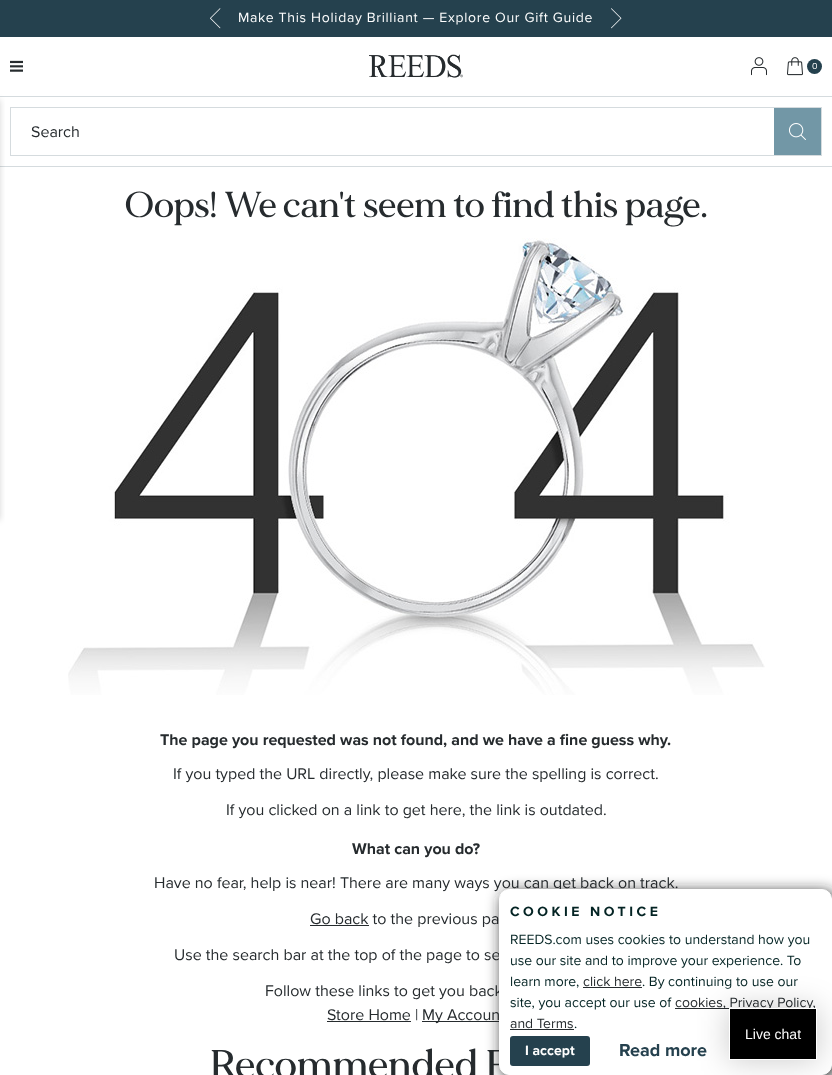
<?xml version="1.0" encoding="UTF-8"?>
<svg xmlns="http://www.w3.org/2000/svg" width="832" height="1075">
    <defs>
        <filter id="blur1" x="-50%" y="-200%" width="200%" height="500%"><feGaussianBlur stdDeviation="3"/></filter>
        <filter id="blur2" x="-50%" y="-200%" width="200%" height="500%"><feGaussianBlur stdDeviation="7.5"/></filter>
        <filter id="blur3" x="-50%" y="-200%" width="200%" height="500%"><feGaussianBlur stdDeviation="15"/></filter>
    </defs>
    <rect width="100%" height="100%" fill="#FFFFFF"/>
    <rect x="0" y="0" width="832" height="37" fill="#25414E"/>
    <image x="210" y="8" width="11" height="21" href="img_01.png"/>
    <text x="238" y="22" font-family="Proxima Nova" font-size="14" letter-spacing="0.7" fill="#FFFFFF">Make This Holiday Brilliant — Explore Our Gift Guide</text>
    <image x="611" y="8" width="11" height="21" href="img_02.png"/>
    <rect x="0" y="166" width="832" height="1" fill="#D5DBDE"/>
    <rect x="0" y="96" width="832" height="1" fill="#D5DBDE"/>
    <rect x="-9" y="100" width="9" height="420" fill="#000000" fill-opacity="0.16" filter="url(#blur1)"/>
    <image x="10" y="60" width="13" height="12" href="img_03.png"/>
    <image x="369" y="54" width="94" height="24" href="img_04.png"/>
    <image x="751" y="57" width="16" height="19" href="img_05.png"/>
    <image x="787" y="57" width="16" height="19" href="img_06.png"/>
    <circle cx="814.5" cy="66.5" r="7.5" fill="#25414E"/>
    <text x="812" y="69" font-family="Proxima Nova" font-size="9" fill="#FFFFFF">0</text>
    <rect x="10.5" y="107.5" width="811" height="48" fill="none" stroke="#D5DBDE"/>
    <text x="31" y="137" font-family="Proxima Nova" font-size="16" fill="#262B2E">Search</text>
    <rect x="774" y="108" width="47" height="47" fill="#7297A6"/>
    <image x="789" y="123" width="17" height="17" href="img_07.png"/>
    <text x="125" y="217" font-family="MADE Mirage" font-size="36" font-weight="500" fill="#262B2E">Oops! We can't seem to find this page.</text>
    <image x="68" y="238" width="697" height="457" href="img_08.png"/>
    <text x="160" y="745" font-family="Proxima Nova" font-size="16" font-weight="700" fill="#262B2E">The page you requested was not found, and we have a fine guess why.</text>
    <text x="173" y="779" font-family="Proxima Nova" font-size="16" fill="#262B2E">If you typed the URL directly, please make sure the spelling is correct.</text>
    <text x="226" y="815" font-family="Proxima Nova" font-size="16" fill="#262B2E">If you clicked on a link to get here, the link is outdated.</text>
    <text x="352" y="854" font-family="Proxima Nova" font-size="16" font-weight="700" fill="#262B2E">What can you do?</text>
    <text x="154" y="888" font-family="Proxima Nova" font-size="16" fill="#262B2E">Have no fear, help is near! There are many ways you can get back on track.</text>
    <rect x="310" y="925" width="59" height="1" fill="#262B2E"/>
    <text x="310" y="924" font-family="Proxima Nova" font-size="16" fill="#262B2E">Go back to the previous pa</text>
    <text x="174" y="960" font-family="Proxima Nova" font-size="16" fill="#262B2E">Use the search bar at the top of the page to se</text>
    <text x="265" y="996" font-family="Proxima Nova" font-size="16" fill="#262B2E">Follow these links to get you back</text>
    <text x="327" y="1020" font-family="Proxima Nova" font-size="16" fill="#262B2E">Store Home |</text>
    <rect x="327" y="1021" width="84" height="1" fill="#262B2E"/>
    <rect x="422" y="1021" width="83" height="1" fill="#262B2E"/>
    <text x="422" y="1020" font-family="Proxima Nova" font-size="16" fill="#262B2E">My Accoun</text>
    <text x="210" y="1078" font-family="MADE Mirage" font-size="40" font-weight="500" fill="#262B2E">Recommended F</text>
    <rect x="502" y="892" width="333" height="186" rx="10" fill="#222222" filter="url(#blur2)"/>
    <rect x="499.5" y="889.5" width="332" height="185" rx="9.5" fill="#FFFFFF" stroke="#FFFFFF"/>
    <text x="510" y="916" font-family="Proxima Nova" font-size="14" font-weight="700" letter-spacing="3.5" fill="#032323">COOKIE NOTICE</text>
    <text font-family="Proxima Nova" font-size="14" fill="#032323">
        <tspan x="510" y="944">REEDS.com uses cookies to understand how you</tspan>
        <tspan x="510" y="965">use our site and to improve your experience. To</tspan>
        <tspan x="510" y="986">learn more,</tspan>
    </text>
    <text x="583" y="986" font-family="Proxima Nova" font-size="14" fill="#262B2E">click here</text>
    <rect x="583" y="987" width="59" height="1" fill="#262B2E"/>
    <text x="642" y="986" font-family="Proxima Nova" font-size="14" fill="#032323">. By continuing to use our</text>
    <text x="510" y="1007" font-family="Proxima Nova" font-size="14" fill="#032323">site, you accept our use of</text>
    <rect x="675" y="1008" width="54" height="1" fill="#262B2E"/>
    <text x="675" y="1007" font-family="Proxima Nova" font-size="14" fill="#262B2E">cookies, Privacy Policy,</text>
    <text x="510" y="1028" font-family="Proxima Nova" font-size="14" fill="#262B2E">and Terms</text>
    <rect x="510" y="1029" width="64" height="1" fill="#262B2E"/>
    <text x="574" y="1028" font-family="Proxima Nova" font-size="14" fill="#032323">.</text>
    <rect x="510" y="1036" width="80" height="30" rx="3" fill="#25414E"/>
    <text x="525" y="1055" font-family="Proxima Nova" font-size="14" font-weight="700" fill="#FFFFFF">I accept</text>
    <text x="619" y="1056" font-family="Proxima Nova" font-size="18" font-weight="700" fill="#25414E">Read more</text>
    <rect x="728" y="1007" width="90" height="54" fill="#000000" fill-opacity="0.2" filter="url(#blur3)"/>
    <rect x="729.5" y="1008.5" width="87" height="51" fill="#000000" stroke="#FFFFFF"/>
    <text x="745" y="1039" font-family="Liberation Sans" font-size="14" fill="#FFFFFF">Live chat</text>
</svg>
